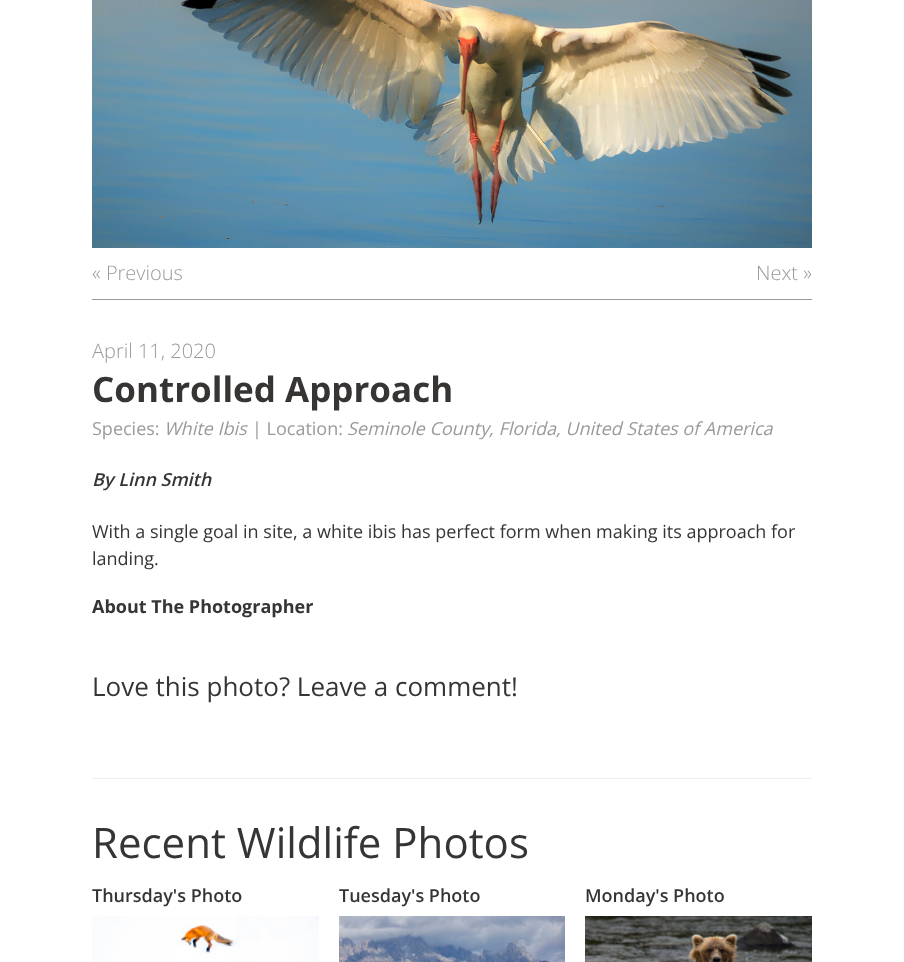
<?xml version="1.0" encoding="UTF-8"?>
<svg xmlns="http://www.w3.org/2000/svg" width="904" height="962">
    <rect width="100%" height="100%" fill="#FFFFFF"/>
    <image x="92" y="0" width="720" height="248" href="img_01.png"/>
    <rect x="92" y="299" width="720" height="1" fill="#9A9A9A"/>
    <text x="92" y="280" font-family="Open Sans" font-size="20" font-weight="300" fill="#9A9A9A">« Previous</text>
    <text x="756" y="280" font-family="Open Sans" font-size="20" font-weight="300" fill="#9A9A9A">Next »</text>
    <text x="92" y="358" font-family="Open Sans" font-size="20" font-weight="300" fill="#9A9A9A">April 11, 2020</text>
    <text x="92" y="402" font-family="Open Sans" font-size="35" font-weight="700" fill="#373534">Controlled Approach</text>
    <text x="92" y="435" font-family="Open Sans" font-size="18" fill="#9A9A9A">Species:</text>
    <text x="164" y="435" font-family="Open Sans" font-size="18" font-style="italic" fill="#9A9A9A">White Ibis</text>
    <text x="252" y="435" font-family="Open Sans" font-size="18" fill="#9A9A9A">| Location:</text>
    <text x="347" y="435" font-family="Open Sans" font-size="18" font-style="italic" fill="#9A9A9A">Seminole County, Florida, United States of America</text>
    <text x="92" y="486" font-family="Open Sans" font-size="18" font-weight="600" font-style="italic" fill="#373534">By Linn Smith</text>
    <text font-family="Open Sans" font-size="18" fill="#373534">
        <tspan x="92" y="538">With a single goal in site, a white ibis has perfect form when making its approach for</tspan>
        <tspan x="92" y="565">landing.</tspan>
    </text>
    <text x="92" y="613" font-family="Open Sans" font-size="18" font-weight="700" fill="#373534">About The Photographer</text>
    <text x="92" y="696" font-family="Open Sans" font-size="26" fill="#373534">Love this photo? Leave a comment!</text>
    <rect x="92" y="778" width="720" height="1" fill="#EEEEEE"/>
    <text x="92" y="858" font-family="Open Sans" font-size="42" fill="#373534">Recent Wildlife Photos</text>
    <text x="92" y="902" font-family="Open Sans" font-size="18" font-weight="600" fill="#373534">Thursday's Photo</text>
    <image x="92" y="916" width="227" height="46" href="img_02.png"/>
    <text x="339" y="902" font-family="Open Sans" font-size="18" font-weight="600" fill="#373534">Tuesday's Photo</text>
    <image x="339" y="916" width="226" height="46" href="img_03.png"/>
    <text x="585" y="902" font-family="Open Sans" font-size="18" font-weight="600" fill="#373534">Monday's Photo</text>
    <image x="585" y="916" width="227" height="46" href="img_04.png"/>
</svg>
